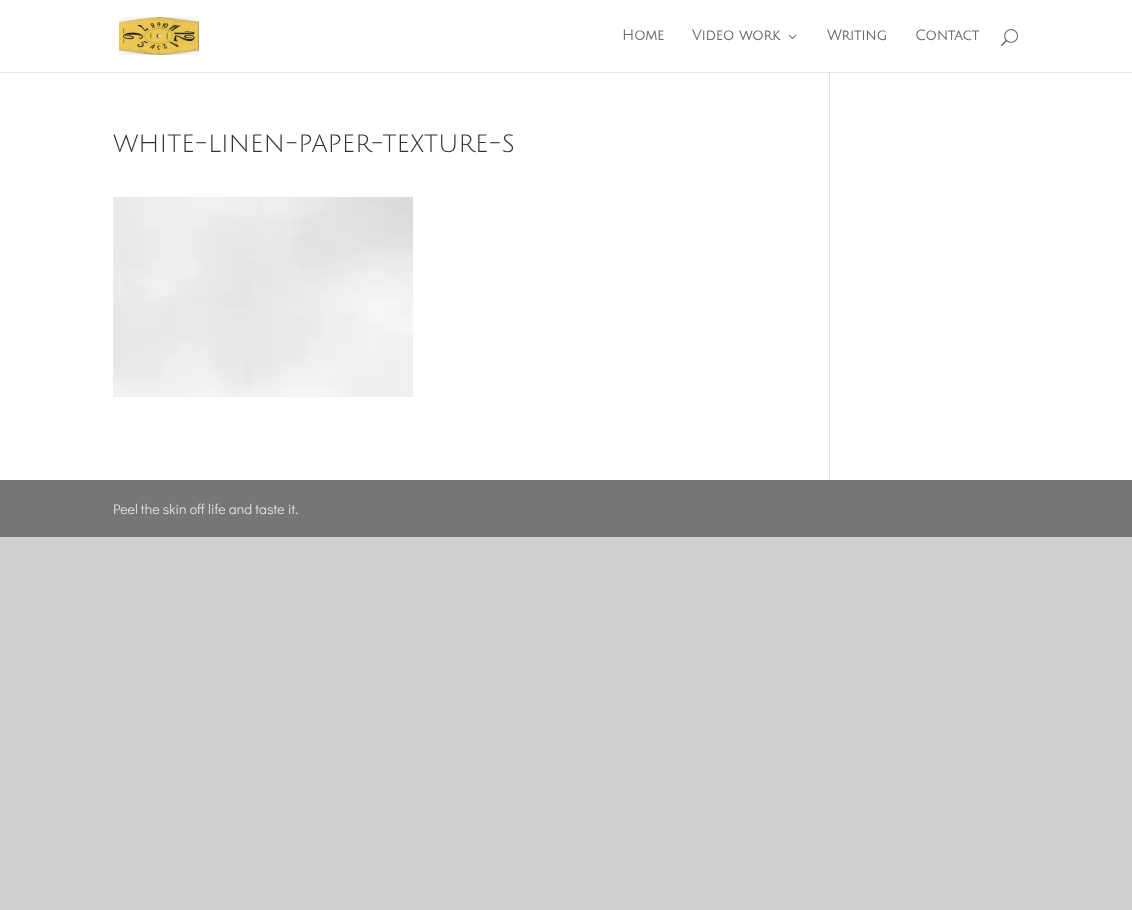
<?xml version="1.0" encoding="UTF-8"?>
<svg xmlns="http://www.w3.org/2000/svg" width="1132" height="910">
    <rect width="100%" height="100%" fill="#CECECE"/>
    <rect x="0" y="0" width="1132" height="72" fill="#FFFFFF"/>
    <image x="119" y="17" width="80" height="38" href="img_01.png"/>
    <text x="622" y="40" font-family="Julius Sans One" font-size="14" font-weight="700" fill="#666666">Home</text>
    <text x="692" y="40" font-family="Julius Sans One" font-size="14" font-weight="700" fill="#666666">Video work</text>
    <image x="788" y="34" width="9" height="5" href="img_02.png"/>
    <text x="827" y="40" font-family="Julius Sans One" font-size="14" font-weight="700" fill="#666666">Writing</text>
    <text x="915" y="40" font-family="Julius Sans One" font-size="14" font-weight="700" fill="#666666">Contact</text>
    <image x="1001" y="29" width="17" height="18" href="img_03.png"/>
    <rect x="0" y="73" width="1132" height="407" fill="#FFFFFF"/>
    <rect x="0" y="72" width="1132" height="1" fill="#E6E6E6"/>
    <text x="113" y="152" font-family="Julius Sans One" font-size="27" fill="#333333">white-linen-paper-texture-s</text>
    <image x="113" y="197" width="300" height="200" href="img_04.png"/>
    <rect x="829" y="72" width="1" height="408" fill="#E2E2E2"/>
    <rect x="829" y="72" width="1" height="1" fill="#CBCBCB"/>
    <rect x="0" y="480" width="1132" height="57" fill="#767676"/>
    <text x="113" y="514" font-family="Didact Gothic" font-size="14" fill="#E0E0E0">Peel the skin off life and taste it.</text>
</svg>
